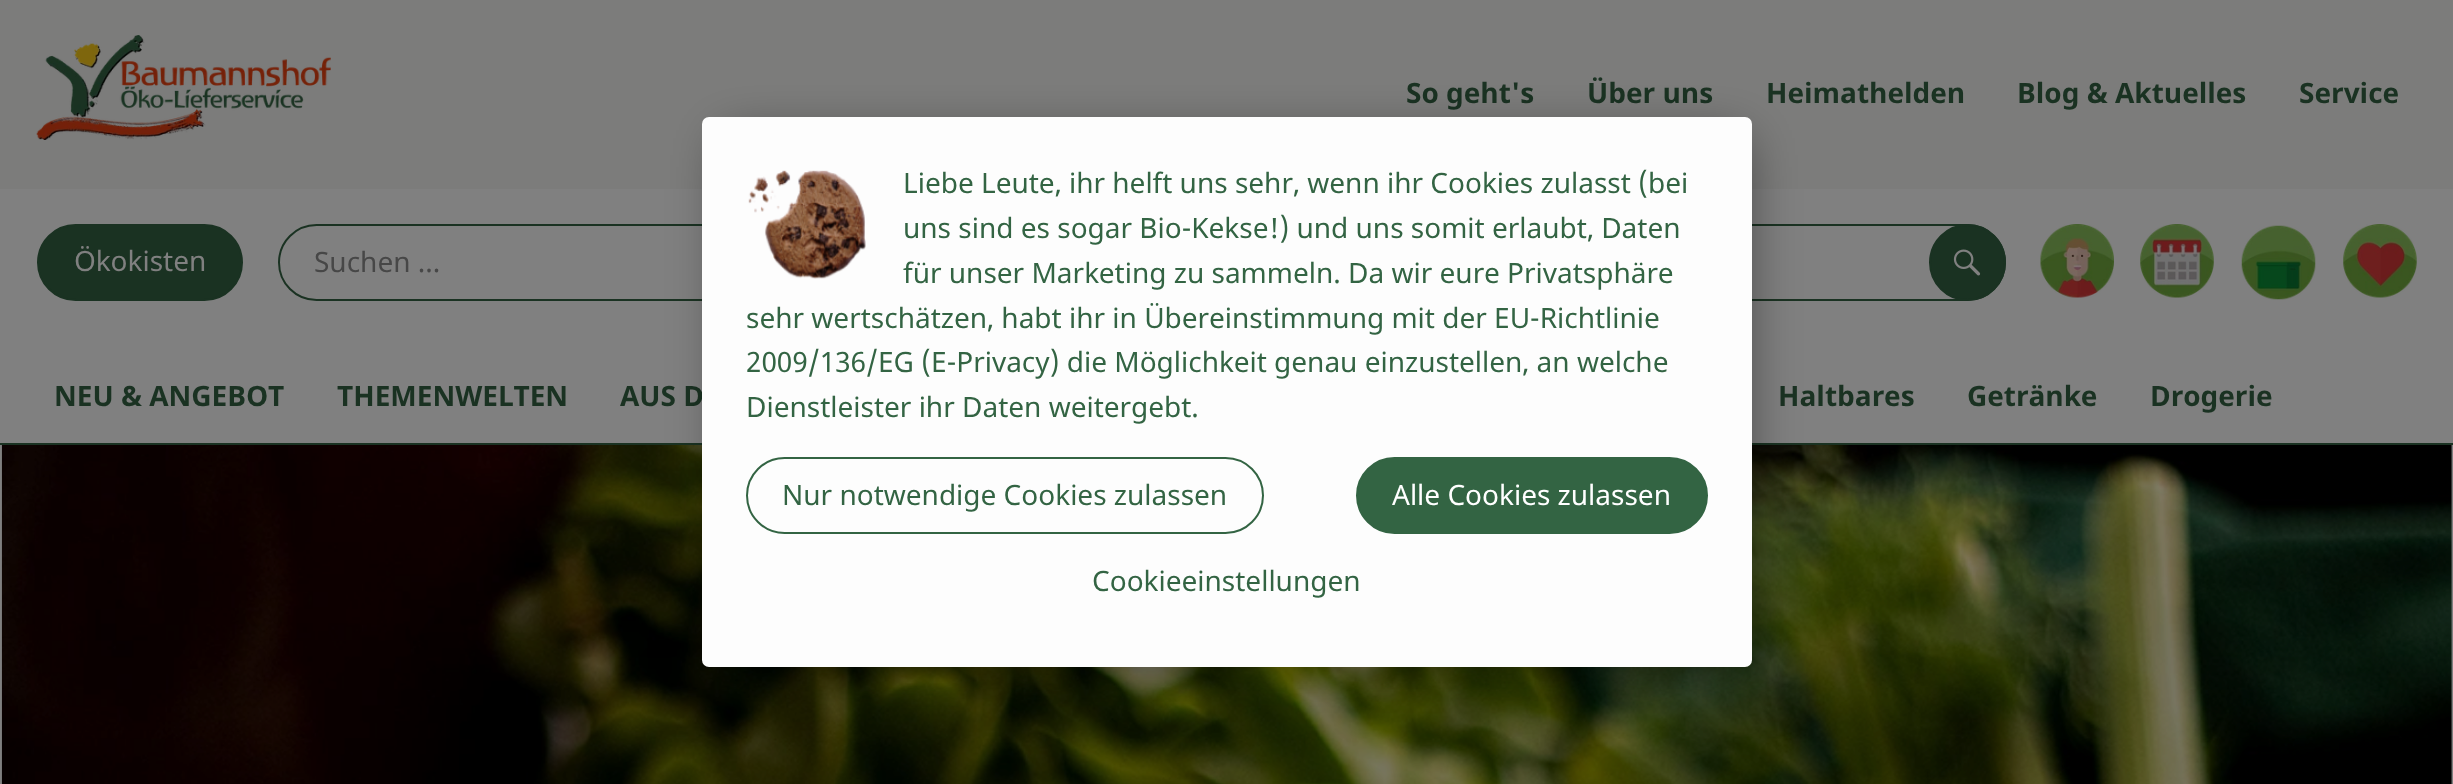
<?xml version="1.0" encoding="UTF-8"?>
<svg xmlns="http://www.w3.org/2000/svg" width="2453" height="784">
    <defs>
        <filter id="blur1" x="-50%" y="-200%" width="200%" height="500%"><feGaussianBlur stdDeviation="26"/></filter>
    </defs>
    <rect width="100%" height="100%" fill="#808080"/>
    <rect x="0" y="0" width="2453" height="189" fill="#7C7C7B"/>
    <image x="36" y="35" width="295" height="105" href="img_01.png"/>
    <text x="1406" y="103" font-family="Noto Sans" font-size="28" font-weight="700" fill="#1A3222">So geht's</text>
    <text x="1587" y="103" font-family="Noto Sans" font-size="28" font-weight="700" fill="#1A3222">Über uns</text>
    <text x="1766" y="103" font-family="Noto Sans" font-size="28" font-weight="700" fill="#1A3222">Heimathelden</text>
    <text x="2017" y="103" font-family="Noto Sans" font-size="28" font-weight="700" fill="#1A3222">Blog &amp; Aktuelles</text>
    <text x="2299" y="103" font-family="Noto Sans" font-size="28" font-weight="700" fill="#1A3222">Service</text>
    <rect x="38" y="225" width="204" height="75" rx="37.5" fill="#1A3222" stroke="#1A3222" stroke-width="2"/>
    <text x="74" y="271" font-family="Noto Sans" font-size="28" fill="#808080">Ökokisten</text>
    <rect x="279" y="225" width="1726" height="75" rx="37.5" fill="none" stroke="#1A3222" stroke-width="2"/>
    <text x="314" y="272" font-family="Noto Sans" font-size="28" fill="#474747">Suchen …</text>
    <circle cx="1967.5" cy="262.5" r="37.5" fill="#1A3222" stroke="#1A3222" stroke-width="2"/>
    <image x="1953" y="249" width="28" height="27" href="img_02.png"/>
    <image x="2040" y="224" width="74" height="74" href="img_03.png"/>
    <image x="2140" y="224" width="74" height="74" href="img_04.png"/>
    <image x="2241" y="225" width="75" height="75" href="img_05.png"/>
    <image x="2343" y="224" width="74" height="74" href="img_06.png"/>
    <rect x="0" y="443" width="2453" height="2" fill="#1A3222"/>
    <text x="54" y="406" font-family="Noto Sans" font-size="28" font-weight="700" fill="#1A3222">NEU &amp; ANGEBOT</text>
    <text x="337" y="406" font-family="Noto Sans" font-size="28" font-weight="700" fill="#1A3222">THEMENWELTEN</text>
    <text x="620" y="406" font-family="Noto Sans" font-size="28" font-weight="700" fill="#1A3222">AUS D</text>
    <text x="1778" y="406" font-family="Noto Sans" font-size="28" font-weight="700" fill="#1A3222">Haltbares</text>
    <text x="1967" y="406" font-family="Noto Sans" font-size="28" font-weight="700" fill="#1A3222">Getränke</text>
    <text x="2150" y="406" font-family="Noto Sans" font-size="28" font-weight="700" fill="#1A3222">Drogerie</text>
    <image x="1" y="445" width="2451" height="339" href="img_07.png"/>
    <rect x="723" y="138" width="1022" height="522" fill="#000000" fill-opacity="0.5" filter="url(#blur1)"/>
    <rect x="702" y="117" width="1050" height="550" rx="7" fill="#FDFDFD"/>
    <image x="748" y="170" width="118" height="109" href="img_08.png"/>
    <text font-family="Noto Sans" font-size="28" fill="#336443">
        <tspan x="903" y="193">Liebe Leute, ihr helft uns sehr, wenn ihr Cookies zulasst (bei</tspan>
        <tspan x="903" y="238">uns sind es sogar Bio-Kekse!) und uns somit erlaubt, Daten</tspan>
        <tspan x="903" y="283">für unser Marketing zu sammeln. Da wir eure Privatsphäre</tspan>
    </text>
    <text font-family="Noto Sans" font-size="28" fill="#336443">
        <tspan x="746" y="328">sehr wertschätzen, habt ihr in Übereinstimmung mit der EU-Richtlinie</tspan>
        <tspan x="746" y="372">2009/136/EG (E-Privacy) die Möglichkeit genau einzustellen, an welche</tspan>
        <tspan x="746" y="417">Dienstleister ihr Daten weitergebt.</tspan>
    </text>
    <rect x="747" y="458" width="516" height="75" rx="37.5" fill="none" stroke="#336443" stroke-width="2"/>
    <text x="782" y="505" font-family="Noto Sans" font-size="28" fill="#336443">Nur notwendige Cookies zulassen</text>
    <rect x="1357" y="458" width="350" height="75" rx="37.5" fill="#336443" stroke="#336443" stroke-width="2"/>
    <text x="1392" y="505" font-family="Noto Sans" font-size="28" fill="#FFFFFF">Alle Cookies zulassen</text>
    <text x="1092" y="591" font-family="Noto Sans" font-size="28" fill="#336443">Cookieeinstellungen</text>
</svg>
